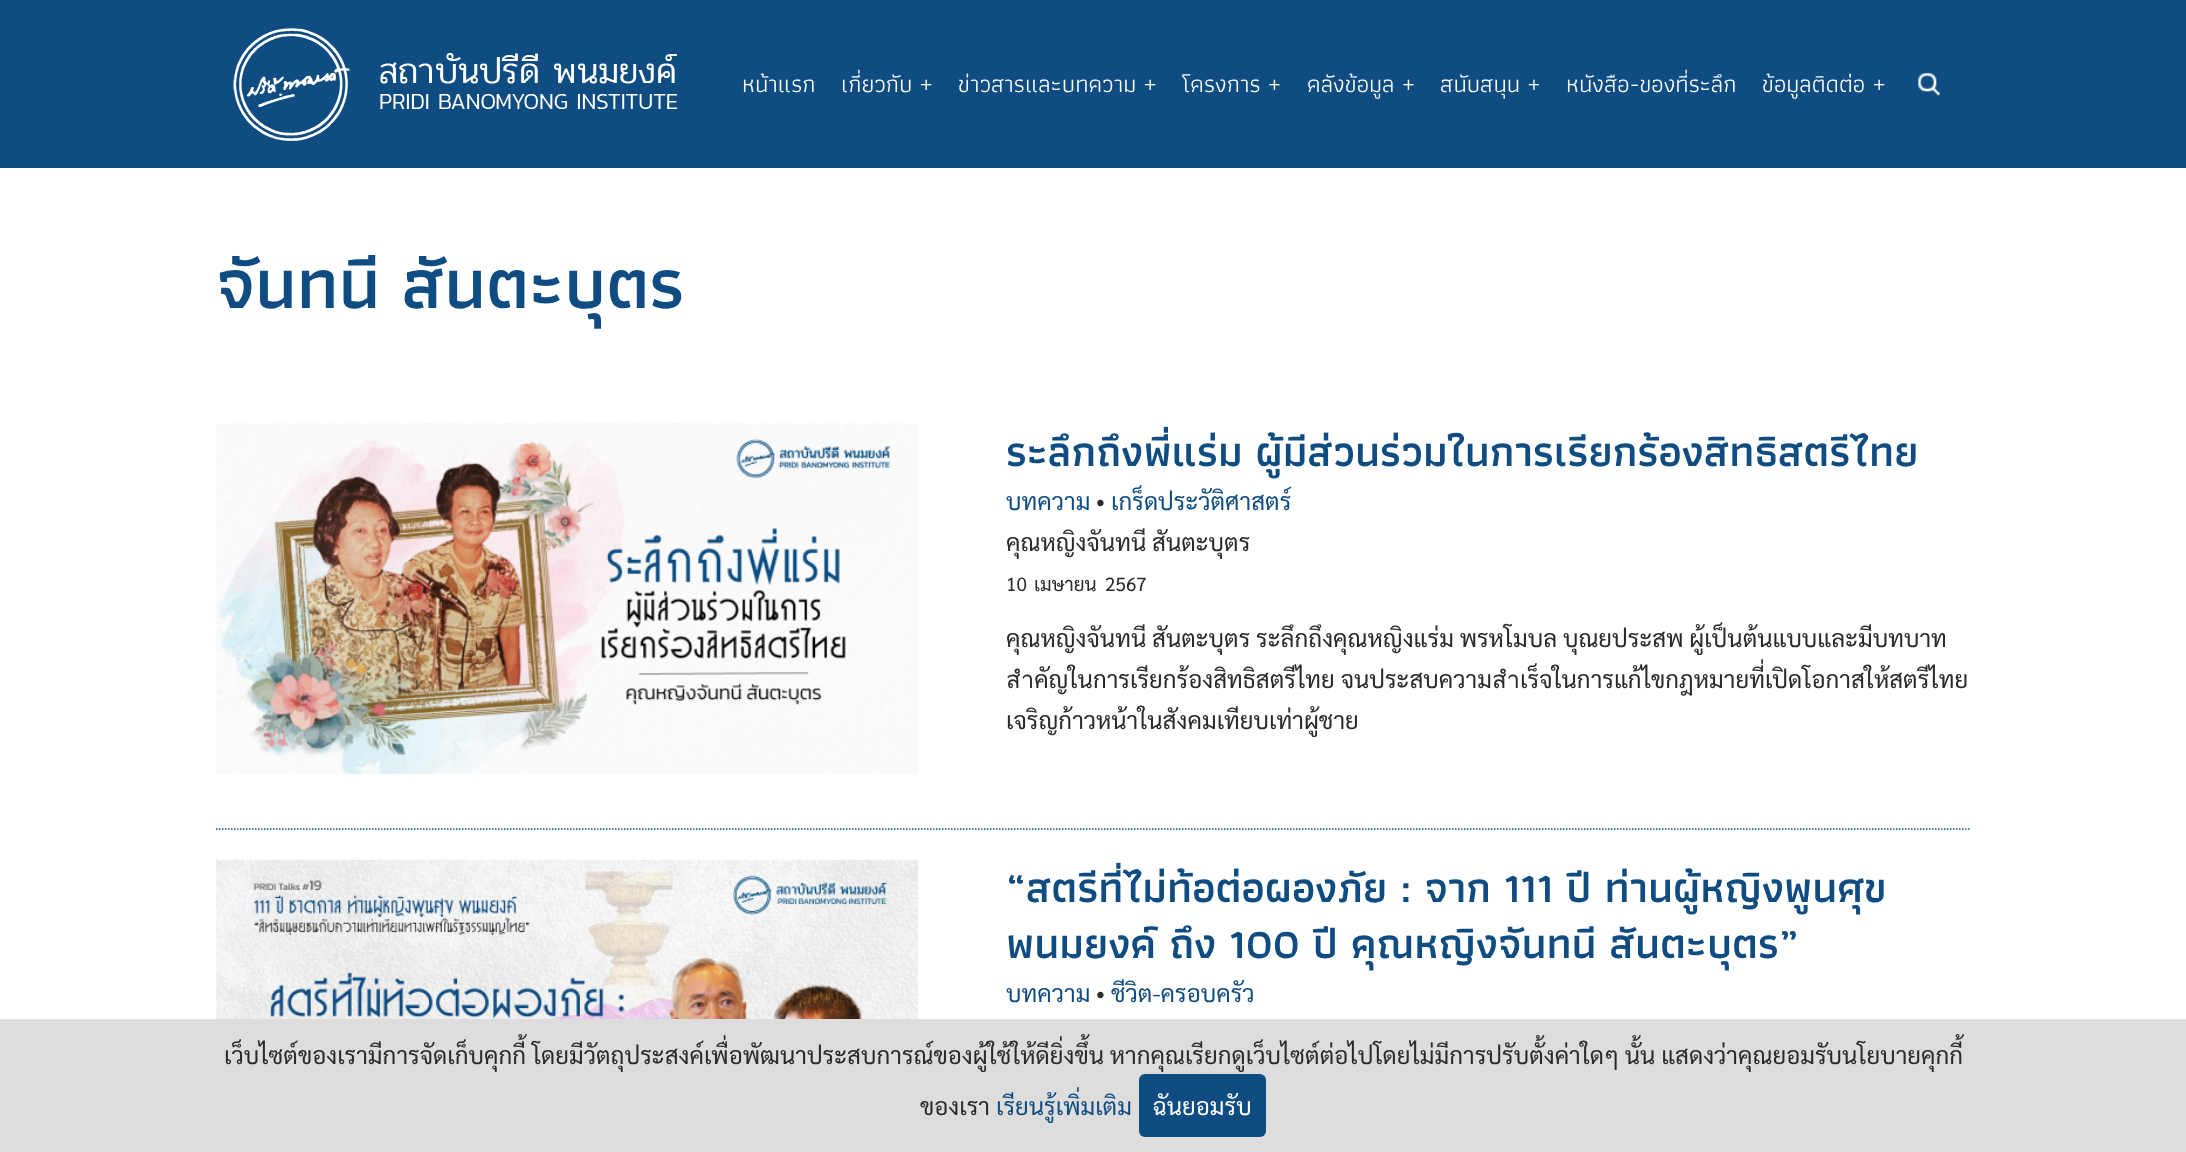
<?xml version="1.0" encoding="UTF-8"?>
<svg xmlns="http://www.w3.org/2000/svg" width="2186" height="1152">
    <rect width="100%" height="100%" fill="#FFFFFF"/>
    <rect x="0" y="0" width="2186" height="168" fill="#0F4C81"/>
    <image x="233" y="28" width="445" height="113" href="img_01.png"/>
    <text x="742" y="92" font-family="Athiti" font-size="24" fill="#FFFFFF">หน้าแรก</text>
    <text x="841" y="92" font-family="Athiti" font-size="24" fill="#FFFFFF">เกี่ยวกับ +</text>
    <text x="958" y="92" font-family="Athiti" font-size="24" fill="#FFFFFF">ข่าวสารและบทความ +</text>
    <text x="1182" y="92" font-family="Athiti" font-size="24" fill="#FFFFFF">โครงการ +</text>
    <text x="1307" y="92" font-family="Athiti" font-size="24" fill="#FFFFFF">คลังข้อมูล +</text>
    <text x="1440" y="92" font-family="Athiti" font-size="24" fill="#FFFFFF">สนับสนุน +</text>
    <text x="1566" y="92" font-family="Athiti" font-size="24" fill="#FFFFFF">หนังสือ-ของที่ระลึก</text>
    <text x="1762" y="92" font-family="Athiti" font-size="24" fill="#FFFFFF">ข้อมูลติดต่อ +</text>
    <image x="1918" y="73" width="22" height="23" href="img_02.png"/>
    <text x="216" y="308" font-family="Athiti" font-size="72" font-weight="600" fill="#0F4C81">จันทนี สันตะบุตร</text>
    <path d="M 216 829 H 1971" fill="none" stroke="#0F4C81" stroke-width="1.5" stroke-dasharray="1.5 1.5"/>
    <image x="216" y="423" width="702" height="351" href="img_03.png"/>
    <text x="1006" y="466" font-family="Athiti" font-size="43.2" font-weight="600" fill="#0F4C81">ระลึกถึงพี่แร่ม ผู้มีส่วนร่วมในการเรียกร้องสิทธิสตรีไทย</text>
    <text x="1006" y="510" font-family="Sarabun" font-size="24" fill="#0F4C81">บทความ</text>
    <text x="1096" y="510" font-family="Sarabun" font-size="24" fill="#2A2A2A">•</text>
    <text x="1111" y="510" font-family="Sarabun" font-size="24" fill="#0F4C81">เกร็ดประวัติศาสตร์</text>
    <text x="1006" y="551" font-family="Sarabun" font-size="24" fill="#2A2A2A">คุณหญิงจันทนี สันตะบุตร</text>
    <text x="1006" y="591" font-family="Sarabun" font-size="19" fill="#2A2A2A">10</text>
    <text x="1034" y="591" font-family="Sarabun" font-size="19" fill="#2A2A2A">เมษายน</text>
    <text x="1105" y="591" font-family="Sarabun" font-size="19" fill="#2A2A2A">2567</text>
    <text font-family="Sarabun" font-size="24" fill="#2A2A2A">
        <tspan x="1006" y="647">คุณหญิงจันทนี สันตะบุตร ระลึกถึงคุณหญิงแร่ม พรหโมบล บุณยประสพ ผู้เป็นต้นแบบและมีบทบาท</tspan>
        <tspan x="1006" y="688">สำคัญในการเรียกร้องสิทธิสตรีไทย จนประสบความสำเร็จในการแก้ไขกฎหมายที่เปิดโอกาสให้สตรีไทย</tspan>
        <tspan x="1006" y="729">เจริญก้าวหน้าในสังคมเทียบเท่าผู้ชาย</tspan>
    </text>
    <image x="216" y="859" width="702" height="160" href="img_04.png"/>
    <text font-family="Athiti" font-size="43.2" font-weight="600" fill="#0F4C81">
        <tspan x="1006" y="902">“สตรีที่ไม่ท้อต่อผองภัย : จาก 111 ปี ท่านผู้หญิงพูนศุข</tspan>
        <tspan x="1006" y="958">พนมยงค์ ถึง 100 ปี คุณหญิงจันทนี สันตะบุตร”</tspan>
    </text>
    <text x="1006" y="1002" font-family="Sarabun" font-size="24" fill="#0F4C81">บทความ</text>
    <text x="1096" y="1002" font-family="Sarabun" font-size="24" fill="#2A2A2A">•</text>
    <text x="1111" y="1002" font-family="Sarabun" font-size="24" fill="#0F4C81">ชีวิต-ครอบครัว</text>
    <rect x="0" y="1019" width="2186" height="133" fill="#DDDDDD"/>
    <text x="224" y="1064" font-family="Sarabun" font-size="24" fill="#2A2A2A">เว็บไซต์ของเรามีการจัดเก็บคุกกี้ โดยมีวัตถุประสงค์เพื่อพัฒนาประสบการณ์ของผู้ใช้ให้ดียิ่งขึ้น หากคุณเรียกดูเว็บไซต์ต่อไปโดยไม่มีการปรับตั้งค่าใดๆ นั้น แสดงว่าคุณยอมรับนโยบายคุกกี้</text>
    <text x="920" y="1115" font-family="Sarabun" font-size="24" fill="#2A2A2A">ของเรา</text>
    <text x="996" y="1115" font-family="Sarabun" font-size="24" fill="#0F4C81">เรียนรู้เพิ่มเติม</text>
    <rect x="1139" y="1074" width="127" height="63" rx="6" fill="#0F4C81"/>
    <text x="1153" y="1115" font-family="Sarabun" font-size="24" fill="#FFFFFF">ฉันยอมรับ</text>
</svg>
